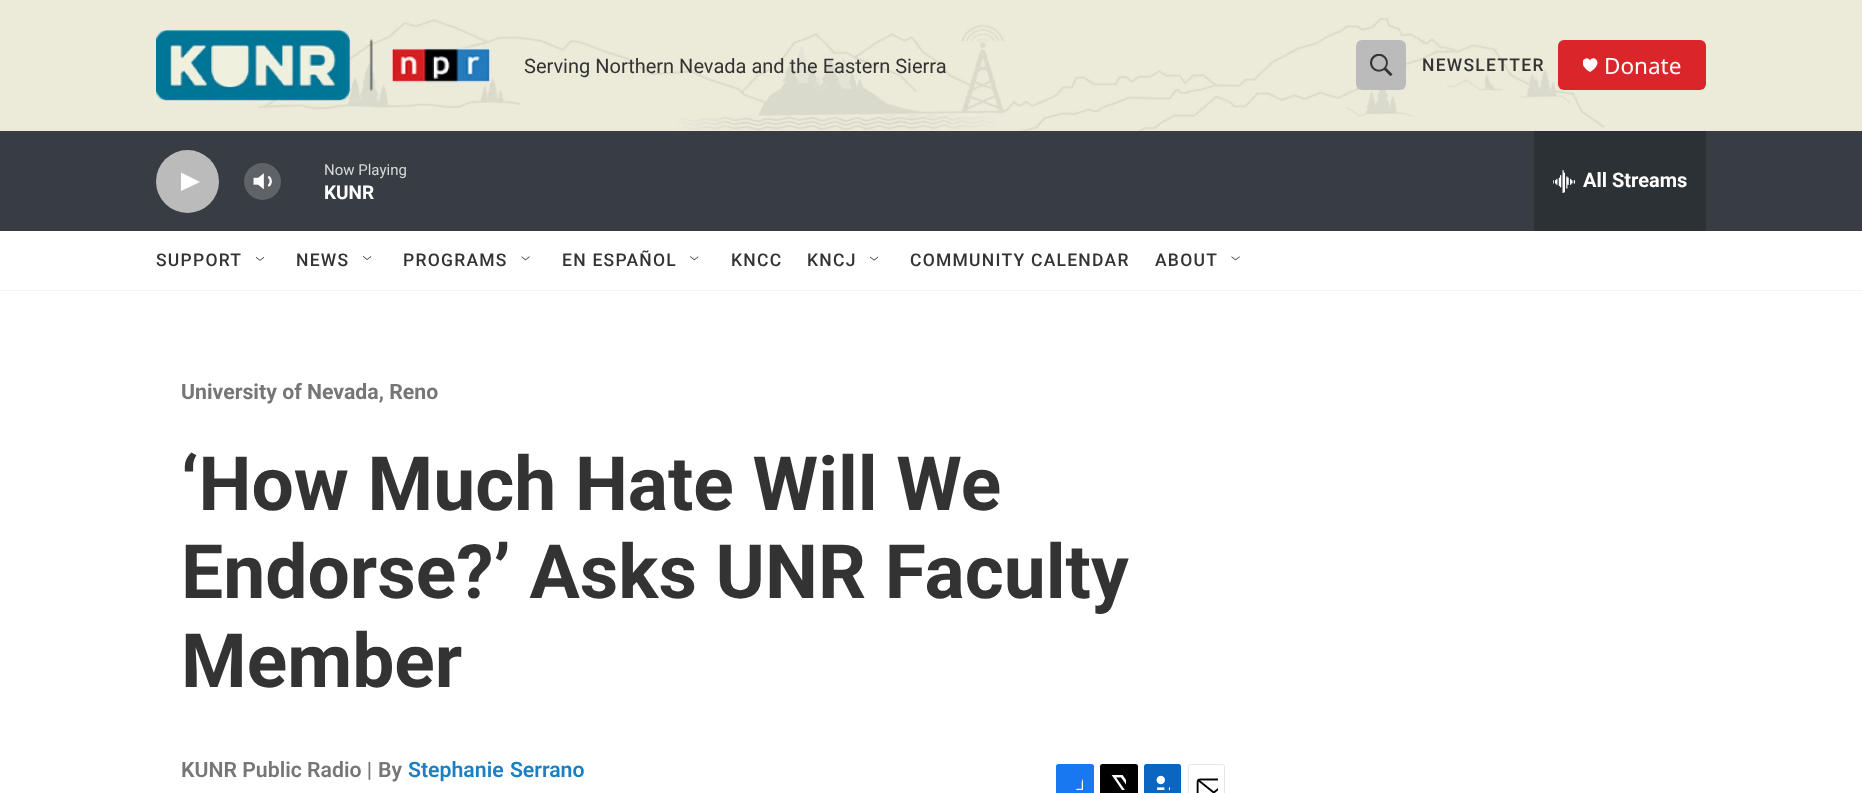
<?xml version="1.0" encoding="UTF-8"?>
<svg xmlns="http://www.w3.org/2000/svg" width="1862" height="793">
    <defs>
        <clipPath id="clip1"><rect x="1583" y="58" width="15" height="15"/></clipPath>
    </defs>
    <rect width="100%" height="100%" fill="#FFFFFF"/>
    <rect x="0" y="0" width="1862" height="131" fill="#ECEBD9"/>
    <rect x="0" y="290" width="1862" height="1" fill="#F5F5F5"/>
    <image x="258" y="18" width="1347" height="113" href="img_01.png"/>
    <image x="156" y="30" width="334" height="71" href="img_02.png"/>
    <text x="524" y="73" font-family="Roboto" font-size="20" fill="#333333">Serving Northern Nevada and the Eastern Sierra</text>
    <rect x="1356" y="40" width="50" height="50" rx="6" fill="#BBBBBB"/>
    <image x="1370" y="54" width="23" height="22" href="img_03.png"/>
    <text x="1422" y="71" font-family="Roboto" font-size="17.5" font-weight="500" letter-spacing="1.25" fill="#333333">NEWSLETTER</text>
    <rect x="1558" y="40" width="148" height="50" rx="6" fill="#DA262B"/>
    <g clip-path="url(#clip1)">
        <path d="M 1590 60.5 C 1587.5 54 1574.5 62.5 1590 72 C 1605.5 62.5 1592.5 54 1590 60.5 Z" fill="#FFFFFF"/>
    </g>
    <text x="1604" y="74" font-family="Noto Sans" font-size="22.5" fill="#FFFFFF">Donate</text>
    <rect x="0" y="131" width="1862" height="100" fill="#373D43"/>
    <circle cx="187.5" cy="181.5" r="31.5" fill="#BBBBBB"/>
    <path d="M 181 172.5 L 200 182 L 181 191 Z" fill="#FFFFFF"/>
    <image x="253" y="173" width="19" height="17" href="img_04.png"/>
    <circle cx="262.5" cy="181.5" r="18.5" fill="#FFFFFF" fill-opacity="0.2"/>
    <text x="324" y="175" font-family="Roboto" font-size="15" fill="#D7D8D9">Now Playing</text>
    <text x="324" y="199" font-family="'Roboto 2'" font-size="19" font-weight="700" fill="#FFFFFF">KUNR</text>
    <rect x="1534" y="131" width="172" height="100" fill="#2C3136"/>
    <image x="1553" y="170" width="22" height="23" href="img_05.png"/>
    <text x="1583" y="187" font-family="'Roboto 2'" font-size="20" font-weight="700" fill="#FFFFFF">All Streams</text>
    <text x="156" y="266" font-family="Roboto" font-size="17.5" font-weight="500" letter-spacing="1.25" fill="#333333">SUPPORT</text>
    <image x="255" y="256" width="10" height="5" href="img_06.png"/>
    <text x="296" y="266" font-family="Roboto" font-size="17.5" font-weight="500" letter-spacing="1.25" fill="#333333">NEWS</text>
    <image x="363" y="256" width="9" height="4" href="img_07.png"/>
    <text x="403" y="266" font-family="Roboto" font-size="17.5" font-weight="500" letter-spacing="1.25" fill="#333333">PROGRAMS</text>
    <image x="521" y="256" width="9" height="5" href="img_08.png"/>
    <text x="562" y="266" font-family="Roboto" font-size="17.5" font-weight="500" letter-spacing="1.25" fill="#333333">EN ESPAÑOL</text>
    <image x="690" y="256" width="9" height="5" href="img_09.png"/>
    <text x="731" y="266" font-family="Roboto" font-size="17.5" font-weight="500" letter-spacing="1.25" fill="#333333">KNCC</text>
    <text x="807" y="266" font-family="Roboto" font-size="17.5" font-weight="500" letter-spacing="1.25" fill="#333333">KNCJ</text>
    <image x="870" y="256" width="8" height="5" href="img_10.png"/>
    <text x="910" y="266" font-family="Roboto" font-size="17.5" font-weight="500" letter-spacing="1.25" fill="#333333">COMMUNITY CALENDAR</text>
    <text x="1155" y="266" font-family="Roboto" font-size="17.5" font-weight="500" letter-spacing="1.25" fill="#333333">ABOUT</text>
    <image x="1231" y="256" width="9" height="5" href="img_11.png"/>
    <text x="181" y="399" font-family="Roboto" font-size="21.25" font-weight="700" fill="#767676">University of Nevada, Reno</text>
    <text font-family="Roboto" font-size="75" font-weight="700" fill="#333333">
        <tspan x="181" y="510">‘How Much Hate Will We</tspan>
        <tspan x="181" y="598">Endorse?’ Asks UNR Faculty</tspan>
        <tspan x="181" y="687">Member</tspan>
    </text>
    <text x="181" y="777" font-family="Roboto" font-size="21.25" font-weight="600" fill="#767676">KUNR Public Radio |</text>
    <text x="378" y="777" font-family="Roboto" font-size="21.25" font-weight="600" fill="#767676">By</text>
    <text x="408" y="777" word-spacing="1" font-family="Roboto" font-size="21.25" font-weight="600" fill="#1A7FC3">Stephanie Serrano</text>
    <rect x="1056" y="764" width="38" height="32" rx="2.5" fill="#1778F2"/>
    <image x="1076" y="779" width="7" height="11" href="img_12.png"/>
    <rect x="1100" y="764" width="38" height="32" rx="2.5" fill="#000000"/>
    <image x="1111" y="775" width="15" height="15" href="img_13.png"/>
    <rect x="1144" y="764" width="37" height="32" rx="2.5" fill="#0A66C1"/>
    <image x="1156" y="775" width="14" height="15" href="img_14.png"/>
    <rect x="1188.5" y="764.5" width="36" height="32" rx="2" fill="none" stroke="#E6E6E6"/>
    <image x="1196" y="778" width="22" height="15" href="img_15.png"/>
</svg>
